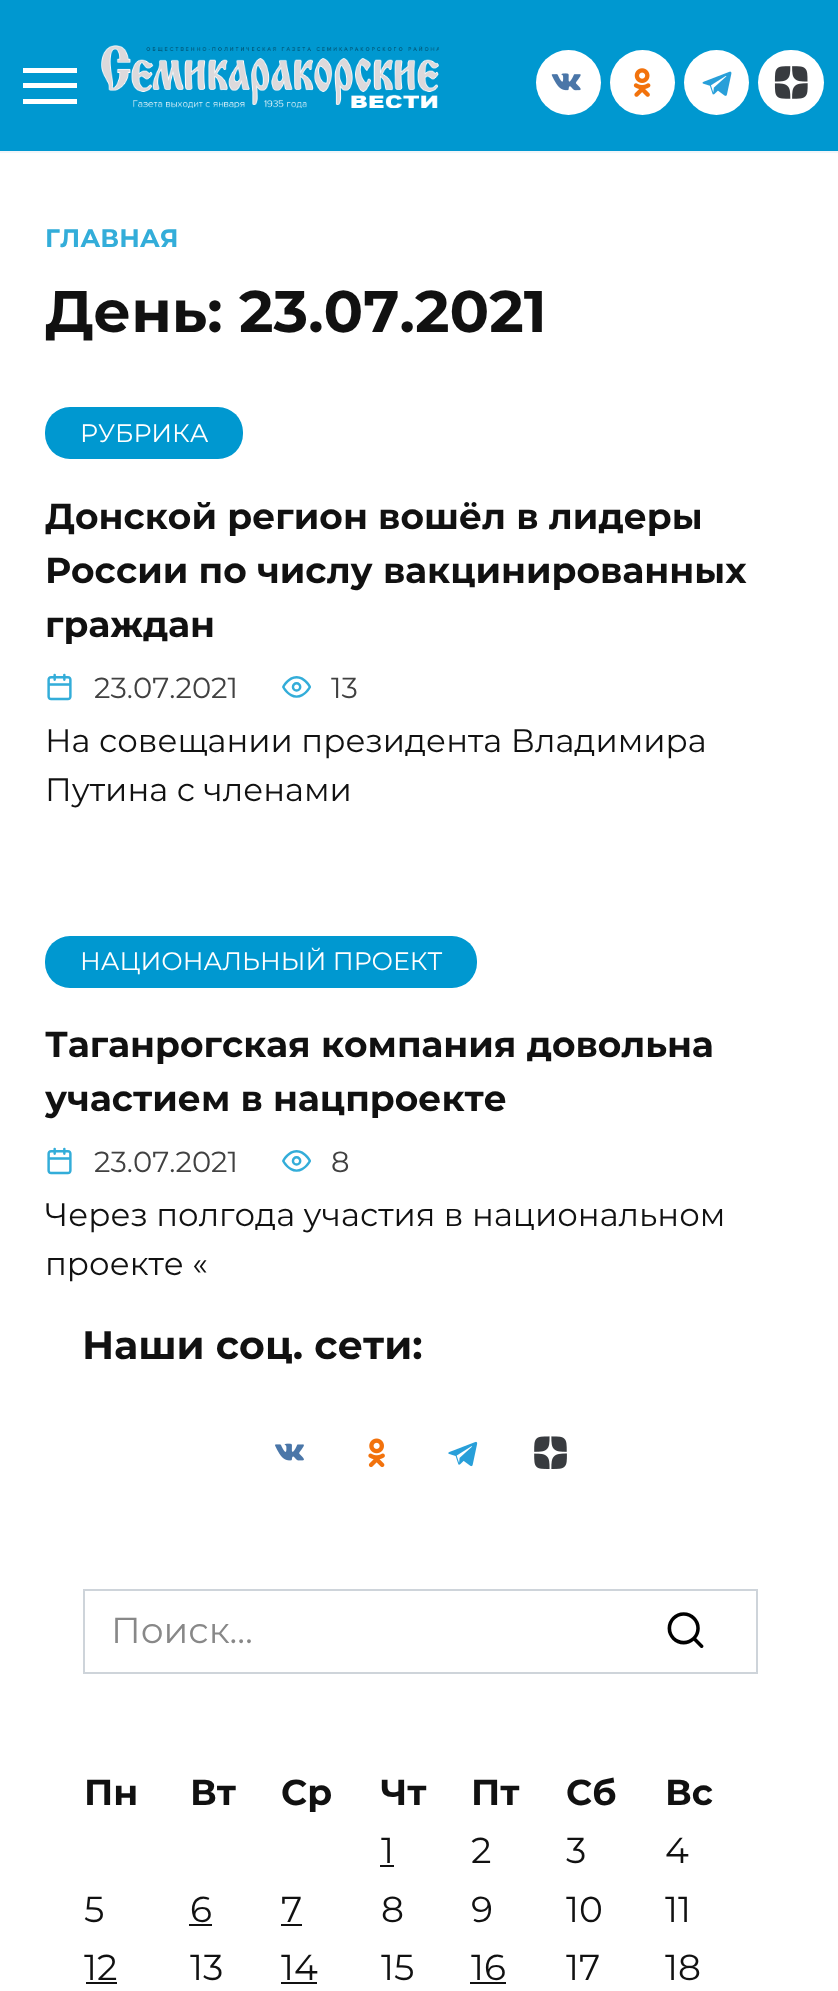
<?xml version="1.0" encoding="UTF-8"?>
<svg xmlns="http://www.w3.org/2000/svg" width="838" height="1991">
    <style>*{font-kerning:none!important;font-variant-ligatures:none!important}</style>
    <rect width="100%" height="100%" fill="#0098D0"/>
    <rect x="0" y="151" width="838" height="2" fill="#F2F5F9"/>
    <rect x="23" y="68" width="54" height="5" fill="#FFFFFF"/>
    <rect x="23" y="83" width="54" height="5" fill="#FFFFFF"/>
    <rect x="23" y="99" width="54" height="5" fill="#FFFFFF"/>
    <image x="101" y="45" width="338" height="63" href="img_01.png"/>
    <circle cx="568.5" cy="82.5" r="32.5" fill="#FFFFFF"/>
    <image x="551" y="73" width="30" height="18" href="img_02.png"/>
    <circle cx="642.5" cy="82.5" r="32.5" fill="#FFFFFF"/>
    <image x="633" y="68" width="18" height="29" href="img_03.png"/>
    <circle cx="716.5" cy="82.5" r="32.5" fill="#FFFFFF"/>
    <image x="702" y="71" width="30" height="25" href="img_04.png"/>
    <rect x="758" y="50" width="66" height="65" rx="32.5" fill="#FFFFFF"/>
    <image x="774" y="66" width="34" height="33" href="img_05.png"/>
    <rect x="0" y="153" width="838" height="1838" fill="#FFFFFF"/>
    <text x="45" y="247" font-family="Montserrat" font-size="25.25" font-weight="700" fill="#33ADD9">ГЛАВНАЯ</text>
    <text x="45" y="332" font-family="Montserrat" font-size="58.5" font-weight="700" fill="#111111">День: 23.07.2021</text>
    <rect x="45" y="407" width="198" height="52" rx="25" fill="#0098D0"/>
    <text x="80" y="442" font-family="Montserrat" font-size="25.25" fill="#FFFFFF">РУБРИКА</text>
    <text font-family="Montserrat" font-size="36" font-weight="700" fill="#111111">
        <tspan x="45" y="529">Донской регион вошёл в лидеры</tspan>
        <tspan x="45" y="583">России по числу вакцинированных</tspan>
        <tspan x="45" y="637">граждан</tspan>
    </text>
    <text x="45" y="699" font-family="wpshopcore" font-size="29" fill="#33ADD9">📅</text>
    <text x="94" y="698" font-family="Montserrat" font-size="29" fill="#414141">23.07.2021</text>
    <text x="282" y="699" font-family="wpshopcore" font-size="29" fill="#33ADD9">👀</text>
    <text x="331" y="698" font-family="Montserrat" font-size="29" fill="#414141">13</text>
    <text font-family="Montserrat" font-size="32.4" fill="#111111">
        <tspan x="45" y="752">На совещании президента Владимира</tspan>
        <tspan x="45" y="801">Путина с членами</tspan>
    </text>
    <rect x="45" y="936" width="432" height="52" rx="25" fill="#0098D0"/>
    <text x="80" y="970" font-family="Montserrat" font-size="25.25" fill="#FFFFFF">НАЦИОНАЛЬНЫЙ ПРОЕКТ</text>
    <text font-family="Montserrat" font-size="36" font-weight="700" fill="#111111">
        <tspan x="45" y="1057">Таганрогская компания довольна</tspan>
        <tspan x="45" y="1111">участием в нацпроекте</tspan>
    </text>
    <text x="45" y="1173" font-family="wpshopcore" font-size="29" fill="#33ADD9">📅</text>
    <text x="94" y="1172" font-family="Montserrat" font-size="29" fill="#414141">23.07.2021</text>
    <text x="282" y="1173" font-family="wpshopcore" font-size="29" fill="#33ADD9">👀</text>
    <text x="331" y="1172" font-family="Montserrat" font-size="29" fill="#414141">8</text>
    <text font-family="Montserrat" font-size="32.4" fill="#111111">
        <tspan x="45" y="1226">Через полгода участия в национальном</tspan>
        <tspan x="45" y="1275">проекте «</tspan>
    </text>
    <text x="82" y="1359" font-family="Montserrat" font-size="39.5" font-weight="700" fill="#111111">Наши соц. сети:</text>
    <image x="275" y="1443" width="29" height="18" href="img_06.png"/>
    <image x="368" y="1438" width="17" height="30" href="img_07.png"/>
    <image x="448" y="1441" width="30" height="26" href="img_08.png"/>
    <image x="534" y="1436" width="33" height="33" href="img_09.png"/>
    <rect x="84" y="1590" width="673" height="83" fill="none" stroke="#CED4DA" stroke-width="2"/>
    <text x="111" y="1643" font-family="Montserrat" font-size="36" fill="#888888">Поиск…</text>
    <text x="664" y="1648" font-family="wpshopcore" font-size="43" fill="#000000">🔍</text>
    <text x="84" y="1805" font-family="Montserrat" font-size="36" font-weight="700" fill="#111111">Пн</text>
    <text x="190" y="1805" font-family="Montserrat" font-size="36" font-weight="700" fill="#111111">Вт</text>
    <text x="281" y="1805" font-family="Montserrat" font-size="36" font-weight="700" fill="#111111">Ср</text>
    <text x="381" y="1805" font-family="Montserrat" font-size="36" font-weight="700" fill="#111111">Чт</text>
    <text x="471" y="1805" font-family="Montserrat" font-size="36" font-weight="700" fill="#111111">Пт</text>
    <text x="566" y="1805" font-family="Montserrat" font-size="36" font-weight="700" fill="#111111">Сб</text>
    <text x="665" y="1805" font-family="Montserrat" font-size="36" font-weight="700" fill="#111111">Вс</text>
    <text x="381" y="1863" font-family="Montserrat" font-size="36" fill="#111111">1</text>
    <rect x="380" y="1865" width="14" height="2" fill="#111111"/>
    <text x="471" y="1863" font-family="Montserrat" font-size="36" fill="#111111">2</text>
    <text x="566" y="1863" font-family="Montserrat" font-size="36" fill="#111111">3</text>
    <text x="665" y="1863" font-family="Montserrat" font-size="36" fill="#111111">4</text>
    <text x="84" y="1922" font-family="Montserrat" font-size="36" fill="#111111">5</text>
    <text x="190" y="1922" font-family="Montserrat" font-size="36" fill="#111111">6</text>
    <rect x="189" y="1924" width="23" height="2" fill="#111111"/>
    <text x="281" y="1922" font-family="Montserrat" font-size="36" fill="#111111">7</text>
    <rect x="281" y="1924" width="21" height="2" fill="#111111"/>
    <text x="381" y="1922" font-family="Montserrat" font-size="36" fill="#111111">8</text>
    <text x="471" y="1922" font-family="Montserrat" font-size="36" fill="#111111">9</text>
    <text x="566" y="1922" font-family="Montserrat" font-size="36" fill="#111111">10</text>
    <text x="665" y="1922" font-family="Montserrat" font-size="36" fill="#111111">11</text>
    <text x="84" y="1980" font-family="Montserrat" font-size="36" fill="#111111">12</text>
    <rect x="86" y="1982" width="31" height="2" fill="#111111"/>
    <text x="190" y="1980" font-family="Montserrat" font-size="36" fill="#111111">13</text>
    <text x="281" y="1980" font-family="Montserrat" font-size="36" fill="#111111">14</text>
    <rect x="281" y="1982" width="36" height="2" fill="#111111"/>
    <text x="381" y="1980" font-family="Montserrat" font-size="36" fill="#111111">15</text>
    <text x="471" y="1980" font-family="Montserrat" font-size="36" fill="#111111">16</text>
    <rect x="470" y="1982" width="36" height="2" fill="#111111"/>
    <text x="566" y="1980" font-family="Montserrat" font-size="36" fill="#111111">17</text>
    <text x="665" y="1980" font-family="Montserrat" font-size="36" fill="#111111">18</text>
</svg>
